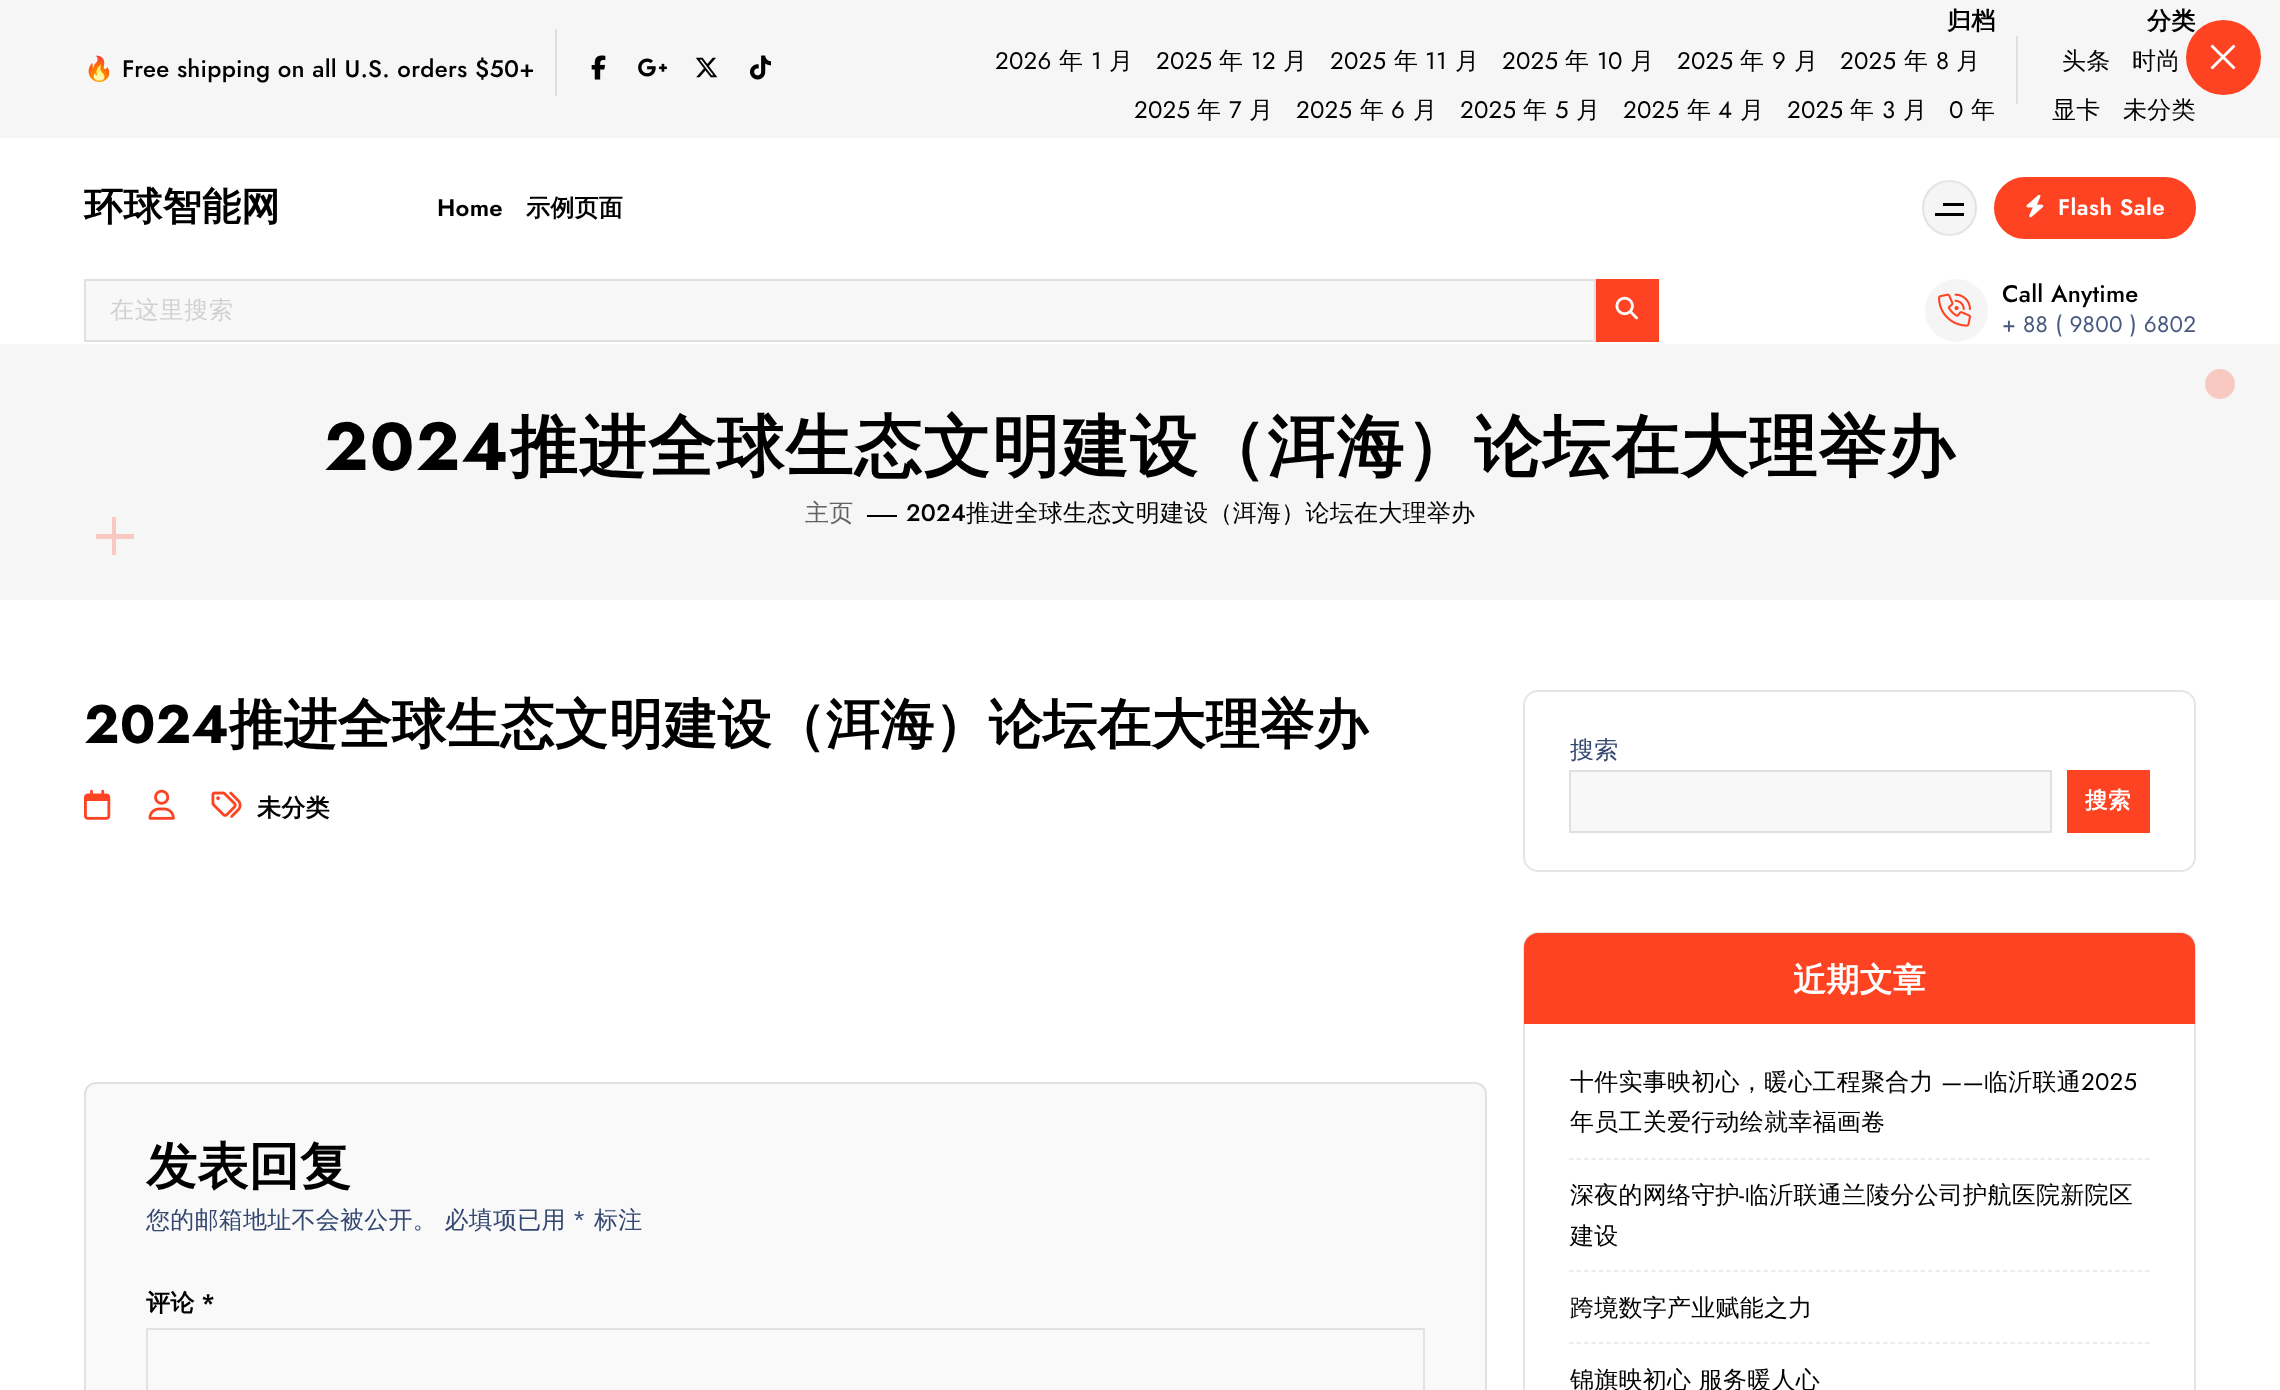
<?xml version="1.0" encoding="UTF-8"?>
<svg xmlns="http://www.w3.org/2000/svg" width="2280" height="1390">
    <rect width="100%" height="100%" fill="#FFFFFF"/>
    <rect x="0" y="0" width="2280" height="138" fill="#F6F6F6"/>
    <text x="84" y="77" font-family="Noto Color Emoji" font-size="24" letter-spacing="0.25" fill="#000000">🔥</text>
    <text x="122" y="77" font-family="Jost" font-size="24" font-weight="500" letter-spacing="0.25" fill="#000000">Free shipping on all U.S. orders $50+</text>
    <rect x="555" y="29" width="2" height="67" fill="#DFDFDF"/>
    <image x="591" y="55" width="15" height="25" href="img_01.png"/>
    <image x="638" y="58" width="29" height="19" href="img_02.png"/>
    <image x="695" y="57" width="23" height="21" href="img_03.png"/>
    <image x="750" y="55" width="21" height="25" href="img_04.png"/>
    <text x="1947" y="29" font-family="WenQuanYi Zen Hei" font-size="24" font-weight="700" letter-spacing="0.25" fill="#000000">归档</text>
    <text x="995" y="69" font-family="Jost" font-size="24" letter-spacing="0.25" fill="#000000">2026</text>
    <text x="1059" y="69" font-family="WenQuanYi Zen Hei" font-size="24" font-weight="500" letter-spacing="0.25" fill="#000000">年</text>
    <text x="1091" y="69" font-family="Jost" font-size="24" letter-spacing="0.25" fill="#000000">1</text>
    <text x="1109" y="69" font-family="WenQuanYi Zen Hei" font-size="24" font-weight="500" letter-spacing="0.25" fill="#000000">月</text>
    <text x="1156" y="69" font-family="Jost" font-size="24" letter-spacing="0.25" fill="#000000">2025</text>
    <text x="1219" y="69" font-family="WenQuanYi Zen Hei" font-size="24" font-weight="500" letter-spacing="0.25" fill="#000000">年</text>
    <text x="1251" y="69" font-family="Jost" font-size="24" letter-spacing="0.25" fill="#000000">12</text>
    <text x="1283" y="69" font-family="WenQuanYi Zen Hei" font-size="24" font-weight="500" letter-spacing="0.25" fill="#000000">月</text>
    <text x="1330" y="69" font-family="Jost" font-size="24" letter-spacing="0.25" fill="#000000">2025</text>
    <text x="1394" y="69" font-family="WenQuanYi Zen Hei" font-size="24" font-weight="500" letter-spacing="0.25" fill="#000000">年</text>
    <text x="1425" y="69" font-family="Jost" font-size="24" letter-spacing="0.25" fill="#000000">11</text>
    <text x="1455" y="69" font-family="WenQuanYi Zen Hei" font-size="24" font-weight="500" letter-spacing="0.25" fill="#000000">月</text>
    <text x="1502" y="69" font-family="Jost" font-size="24" letter-spacing="0.25" fill="#000000">2025</text>
    <text x="1565" y="69" font-family="WenQuanYi Zen Hei" font-size="24" font-weight="500" letter-spacing="0.25" fill="#000000">年</text>
    <text x="1597" y="69" font-family="Jost" font-size="24" letter-spacing="0.25" fill="#000000">10</text>
    <text x="1630" y="69" font-family="WenQuanYi Zen Hei" font-size="24" font-weight="500" letter-spacing="0.25" fill="#000000">月</text>
    <text x="1677" y="69" font-family="Jost" font-size="24" letter-spacing="0.25" fill="#000000">2025</text>
    <text x="1740" y="69" font-family="WenQuanYi Zen Hei" font-size="24" font-weight="500" letter-spacing="0.25" fill="#000000">年</text>
    <text x="1772" y="69" font-family="Jost" font-size="24" letter-spacing="0.25" fill="#000000">9</text>
    <text x="1794" y="69" font-family="WenQuanYi Zen Hei" font-size="24" font-weight="500" letter-spacing="0.25" fill="#000000">月</text>
    <text x="1840" y="69" font-family="Jost" font-size="24" letter-spacing="0.25" fill="#000000">2025</text>
    <text x="1904" y="69" font-family="WenQuanYi Zen Hei" font-size="24" font-weight="500" letter-spacing="0.25" fill="#000000">年</text>
    <text x="1936" y="69" font-family="Jost" font-size="24" letter-spacing="0.25" fill="#000000">8</text>
    <text x="1956" y="69" font-family="WenQuanYi Zen Hei" font-size="24" font-weight="500" letter-spacing="0.25" fill="#000000">月</text>
    <text x="1134" y="118" font-family="Jost" font-size="24" letter-spacing="0.25" fill="#000000">2025</text>
    <text x="1197" y="118" font-family="WenQuanYi Zen Hei" font-size="24" font-weight="500" letter-spacing="0.25" fill="#000000">年</text>
    <text x="1229" y="118" font-family="Jost" font-size="24" letter-spacing="0.25" fill="#000000">7</text>
    <text x="1249" y="118" font-family="WenQuanYi Zen Hei" font-size="24" font-weight="500" letter-spacing="0.25" fill="#000000">月</text>
    <text x="1296" y="118" font-family="Jost" font-size="24" letter-spacing="0.25" fill="#000000">2025</text>
    <text x="1360" y="118" font-family="WenQuanYi Zen Hei" font-size="24" font-weight="500" letter-spacing="0.25" fill="#000000">年</text>
    <text x="1391" y="118" font-family="Jost" font-size="24" letter-spacing="0.25" fill="#000000">6</text>
    <text x="1413" y="118" font-family="WenQuanYi Zen Hei" font-size="24" font-weight="500" letter-spacing="0.25" fill="#000000">月</text>
    <text x="1460" y="118" font-family="Jost" font-size="24" letter-spacing="0.25" fill="#000000">2025</text>
    <text x="1523" y="118" font-family="WenQuanYi Zen Hei" font-size="24" font-weight="500" letter-spacing="0.25" fill="#000000">年</text>
    <text x="1555" y="118" font-family="Jost" font-size="24" letter-spacing="0.25" fill="#000000">5</text>
    <text x="1576" y="118" font-family="WenQuanYi Zen Hei" font-size="24" font-weight="500" letter-spacing="0.25" fill="#000000">月</text>
    <text x="1623" y="118" font-family="Jost" font-size="24" letter-spacing="0.25" fill="#000000">2025</text>
    <text x="1687" y="118" font-family="WenQuanYi Zen Hei" font-size="24" font-weight="500" letter-spacing="0.25" fill="#000000">年</text>
    <text x="1718" y="118" font-family="Jost" font-size="24" letter-spacing="0.25" fill="#000000">4</text>
    <text x="1740" y="118" font-family="WenQuanYi Zen Hei" font-size="24" font-weight="500" letter-spacing="0.25" fill="#000000">月</text>
    <text x="1787" y="118" font-family="Jost" font-size="24" letter-spacing="0.25" fill="#000000">2025</text>
    <text x="1850" y="118" font-family="WenQuanYi Zen Hei" font-size="24" font-weight="500" letter-spacing="0.25" fill="#000000">年</text>
    <text x="1882" y="118" font-family="Jost" font-size="24" letter-spacing="0.25" fill="#000000">3</text>
    <text x="1903" y="118" font-family="WenQuanYi Zen Hei" font-size="24" font-weight="500" letter-spacing="0.25" fill="#000000">月</text>
    <text x="1949" y="118" font-family="Jost" font-size="24" letter-spacing="0.25" fill="#000000">0</text>
    <text x="1971" y="118" font-family="WenQuanYi Zen Hei" font-size="24" font-weight="500" letter-spacing="0.25" fill="#000000">年</text>
    <rect x="2016" y="36" width="2" height="68" fill="#DFDFDF"/>
    <text x="2147" y="29" font-family="WenQuanYi Zen Hei" font-size="24" font-weight="700" letter-spacing="0.25" fill="#000000">分类</text>
    <text x="2062" y="69" font-family="WenQuanYi Zen Hei" font-size="24" font-weight="500" letter-spacing="0.25" fill="#000000">头条</text>
    <text x="2132" y="69" font-family="WenQuanYi Zen Hei" font-size="24" font-weight="500" letter-spacing="0.25" fill="#000000">时尚</text>
    <text x="2052" y="118" font-family="WenQuanYi Zen Hei" font-size="24" font-weight="500" letter-spacing="0.25" fill="#000000">显卡</text>
    <text x="2123" y="118" font-family="WenQuanYi Zen Hei" font-size="24" font-weight="500" letter-spacing="0.25" fill="#000000">未分类</text>
    <text x="84" y="220" font-family="WenQuanYi Zen Hei" font-size="39" font-weight="700" letter-spacing="0.25" fill="#000000">环球智能网</text>
    <text x="437" y="216" font-family="Jost" font-size="24" font-weight="600" letter-spacing="0.25" fill="#000000">Home</text>
    <text x="526" y="216" font-family="WenQuanYi Zen Hei" font-size="24" font-weight="700" letter-spacing="0.25" fill="#000000">示例页面</text>
    <rect x="1923" y="182" width="53" height="52" rx="26" fill="#F5F5F5"/>
    <rect x="1923" y="181" width="53" height="54" rx="26.5" fill="none" stroke="#BDBDBD" stroke-opacity="0.4" stroke-width="2"/>
    <rect x="1943" y="203" width="21" height="3" fill="#000000"/>
    <rect x="1935" y="213" width="29" height="3" fill="#000000"/>
    <rect x="1995" y="178" width="200" height="60" rx="30" fill="#FE4322" stroke="#FE4322" stroke-width="2"/>
    <image x="2026" y="194" width="18" height="24" href="img_05.png"/>
    <text x="2058" y="215" font-family="Jost" font-size="22.5" font-weight="600" letter-spacing="0.5" fill="#FFFFFF">Flash Sale</text>
    <rect x="85" y="280" width="1510" height="61" fill="#F8F8F8" stroke="#E0E0E0" stroke-width="2"/>
    <text x="110" y="318" font-family="WenQuanYi Zen Hei" font-size="24" font-weight="500" letter-spacing="0.75" fill="#D1D1D1">在这里搜索</text>
    <rect x="1596" y="279" width="63" height="63" fill="#FE4322"/>
    <image x="1615" y="296" width="23" height="24" href="img_06.png"/>
    <circle cx="1956.5" cy="310.5" r="31.5" fill="#F5F5F5"/>
    <image x="1938" y="293" width="33" height="34" href="img_07.png"/>
    <text x="2002" y="302" font-family="Jost" font-size="24" font-weight="500" letter-spacing="0.25" fill="#000000">Call Anytime</text>
    <text x="2002" y="332" font-family="Jost" font-size="22.5" letter-spacing="0.25" fill="#47597E">+ 88 ( 9800 ) 6802</text>
    <circle cx="2223.5" cy="57.5" r="37.5" fill="#FE4322"/>
    <path d="M 2210.5 67.5 L 2233.5 44.5 L 2235.5 46.5 L 2212.5 69.5 Z" fill="#FFFFFF"/>
    <path d="M 2233.5 69.5 L 2210.5 46.5 L 2212.5 44.5 L 2235.5 67.5 Z" fill="#FFFFFF"/>
    <rect x="0" y="344" width="2280" height="256" fill="#F6F6F6"/>
    <circle cx="2220" cy="384" r="15" fill="#F8C9C1"/>
    <text x="324" y="470" font-family="Jost" font-size="67.5" font-weight="700" letter-spacing="1.35" fill="#000000">2024</text>
    <text x="510" y="470" font-family="WenQuanYi Zen Hei" font-size="67.5" font-weight="700" letter-spacing="1.35" fill="#000000">推进全球生态文明建设（洱海）论坛在大理举办</text>
    <text x="805" y="521" font-family="WenQuanYi Zen Hei" font-size="24" font-weight="500" letter-spacing="0.25" fill="#626262">主页</text>
    <rect x="867" y="515" width="30" height="2" fill="#000000"/>
    <text x="906" y="521" font-family="Jost" font-size="24" font-weight="500" letter-spacing="0.25" fill="#000000">2024</text>
    <text x="966" y="521" font-family="WenQuanYi Zen Hei" font-size="24" font-weight="500" letter-spacing="0.25" fill="#000000">推进全球生态文明建设（洱海）论坛在大理举办</text>
    <rect x="96" y="534" width="38" height="5" fill="#F8C9C1"/>
    <rect x="112" y="517" width="4" height="38" fill="#F8C9C1"/>
    <text x="84" y="743" font-family="Jost" font-size="54" font-weight="700" letter-spacing="0.25" fill="#000000">2024</text>
    <text x="229" y="743" font-family="WenQuanYi Zen Hei" font-size="54" font-weight="700" letter-spacing="0.25" fill="#000000">推进全球生态文明建设（洱海）论坛在大理举办</text>
    <image x="84" y="789" width="27" height="31" href="img_08.png"/>
    <image x="148" y="789" width="27" height="31" href="img_09.png"/>
    <image x="211" y="791" width="31" height="27" href="img_10.png"/>
    <text x="257" y="816" font-family="WenQuanYi Zen Hei" font-size="24" font-weight="700" letter-spacing="0.25" fill="#000000">未分类</text>
    <rect x="85" y="1083" width="1401" height="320" rx="11" fill="#F9F9F9" stroke="#E1E1E1" stroke-width="2"/>
    <text x="146" y="1184" font-family="WenQuanYi Zen Hei" font-size="51" font-weight="700" letter-spacing="0.25" fill="#000000">发表回复</text>
    <text x="146" y="1228" font-family="WenQuanYi Zen Hei" font-size="24" font-weight="500" letter-spacing="0.25" fill="#334770">您的邮箱地址不会被公开。 必填项已用</text>
    <text x="572" y="1228" font-family="Jost" font-size="24" letter-spacing="0.25" fill="#334770">*</text>
    <text x="594" y="1228" font-family="WenQuanYi Zen Hei" font-size="24" font-weight="500" letter-spacing="0.25" fill="#334770">标注</text>
    <text x="146" y="1311" font-family="WenQuanYi Zen Hei" font-size="24" font-weight="700" letter-spacing="0.25" fill="#000000">评论</text>
    <text x="201" y="1311" font-family="Jost" font-size="24" font-weight="600" letter-spacing="0.25" fill="#000000">*</text>
    <rect x="147" y="1329" width="1277" height="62" fill="none" stroke="#E1E1E1" stroke-width="2"/>
    <rect x="1524" y="691" width="671" height="180" rx="14" fill="none" stroke="#E5E5E5" stroke-width="2"/>
    <text x="1570" y="758" font-family="WenQuanYi Zen Hei" font-size="24" font-weight="500" letter-spacing="0.25" fill="#334770">搜索</text>
    <rect x="1570" y="771" width="481" height="61" fill="#F8F8F8" stroke="#E0E0E0" stroke-width="2"/>
    <rect x="2067" y="770" width="83" height="63" fill="#FE4322"/>
    <text x="2085" y="808" font-family="WenQuanYi Zen Hei" font-size="22.5" font-weight="700" letter-spacing="0.5" fill="#FFFFFF">搜索</text>
    <rect x="1524" y="933" width="671" height="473" rx="14" fill="none" stroke="#E5E5E5" stroke-width="2"/>
    <path d="M 1538 933 H 2181 C 2188.5 933 2195 939.5 2195 947 V 1023 H 1524 V 947 C 1524 939.5 1530.5 933 1538 933 Z" fill="#FE4322"/>
    <text x="1793" y="991" font-family="WenQuanYi Zen Hei" font-size="33" font-weight="700" letter-spacing="0.25" fill="#FFFFFF">近期文章</text>
    <rect x="1524" y="1023" width="671" height="1" fill="#FE4322"/>
    <path d="M 1569 1159 H 2149.5" fill="none" stroke="#E5E5E5" stroke-width="1.5" stroke-dasharray="4.5 2.98"/>
    <text x="1570" y="1090" font-family="WenQuanYi Zen Hei" font-size="24" font-weight="500" letter-spacing="0.25" fill="#000000">十件实事映初心，暖心工程聚合力</text>
    <text x="1941" y="1090" font-family="Jost" font-size="24" letter-spacing="0.25" fill="#000000">——</text>
    <text x="1984" y="1090" font-family="WenQuanYi Zen Hei" font-size="24" font-weight="500" letter-spacing="0.25" fill="#000000">临沂联通</text>
    <text x="2081" y="1090" font-family="Jost" font-size="24" letter-spacing="0.25" fill="#000000">2025</text>
    <text x="1570" y="1130" font-family="WenQuanYi Zen Hei" font-size="24" font-weight="500" letter-spacing="0.25" fill="#000000">年员工关爱行动绘就幸福画卷</text>
    <path d="M 1569 1271 H 2149.5" fill="none" stroke="#E5E5E5" stroke-width="1.5" stroke-dasharray="4.5 2.98"/>
    <text x="1570" y="1203" font-family="WenQuanYi Zen Hei" font-size="24" font-weight="500" letter-spacing="0.25" fill="#000000">深夜的网络守护</text>
    <text x="1739" y="1203" font-family="Jost" font-size="24" letter-spacing="0.25" fill="#000000">-</text>
    <text x="1745" y="1203" font-family="WenQuanYi Zen Hei" font-size="24" font-weight="500" letter-spacing="0.25" fill="#000000">临沂联通兰陵分公司护航医院新院区</text>
    <text x="1570" y="1244" font-family="WenQuanYi Zen Hei" font-size="24" font-weight="500" letter-spacing="0.25" fill="#000000">建设</text>
    <path d="M 1569 1343 H 2149.5" fill="none" stroke="#E5E5E5" stroke-width="1.5" stroke-dasharray="4.5 2.98"/>
    <text x="1570" y="1316" font-family="WenQuanYi Zen Hei" font-size="24" font-weight="500" letter-spacing="0.25" fill="#000000">跨境数字产业赋能之力</text>
    <text x="1570" y="1388" font-family="WenQuanYi Zen Hei" font-size="24" font-weight="500" letter-spacing="0.25" fill="#000000">锦旗映初心 服务暖人心</text>
</svg>
